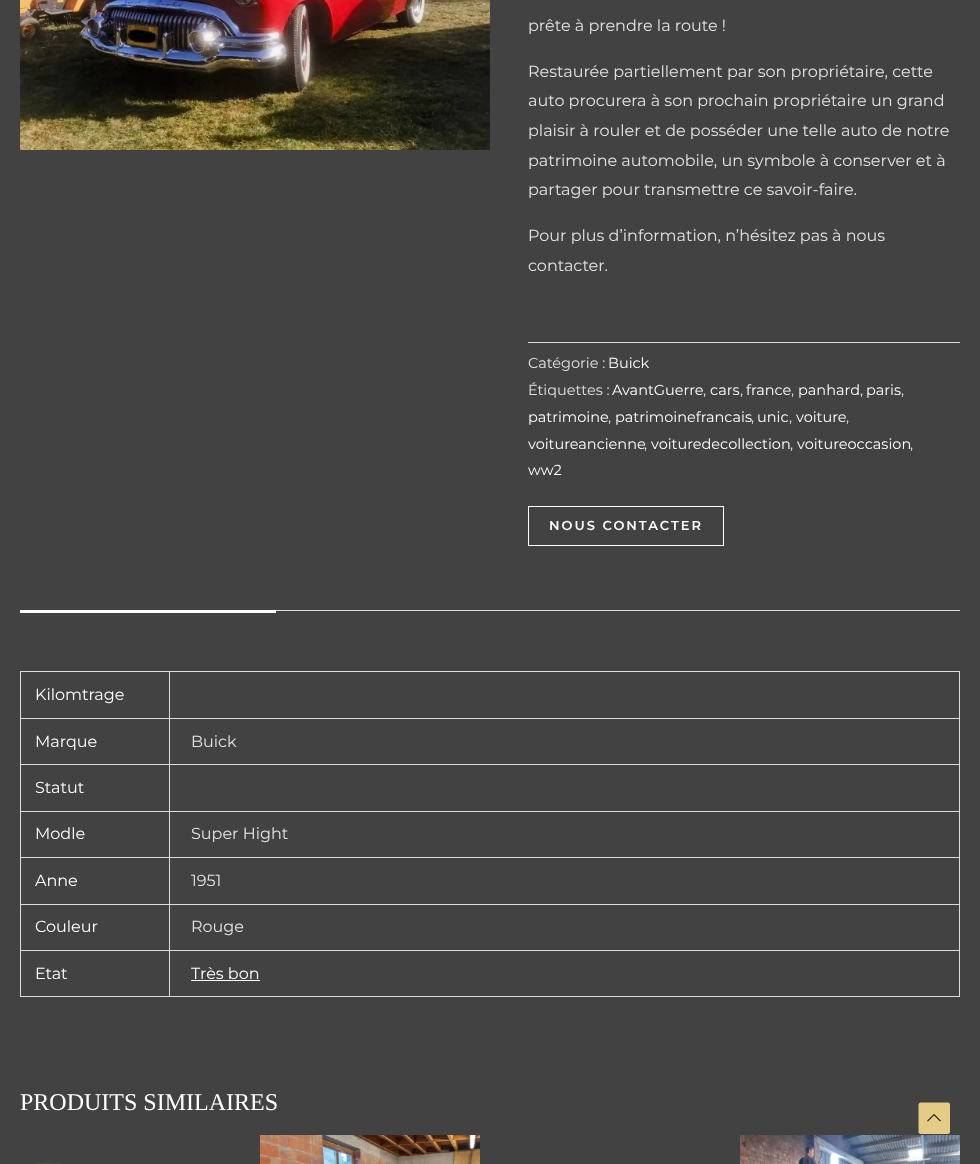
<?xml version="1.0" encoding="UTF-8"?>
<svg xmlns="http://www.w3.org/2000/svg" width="980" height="1164">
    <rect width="100%" height="100%" fill="#424242"/>
    <image x="20" y="0" width="470" height="150" href="img_01.png"/>
    <text x="528" y="31" font-family="Montserrat" font-size="16" fill="#E2E2E2">prête à prendre la route !</text>
    <text font-family="Montserrat" font-size="16" fill="#E2E2E2">
        <tspan x="528" y="77">Restaurée partiellement par son propriétaire, cette</tspan>
        <tspan x="528" y="106">auto procurera à son prochain propriétaire un grand</tspan>
        <tspan x="528" y="136">plaisir à rouler et de posséder une telle auto de notre</tspan>
        <tspan x="528" y="166">patrimoine automobile, un symbole à conserver et à</tspan>
        <tspan x="528" y="195">partager pour transmettre ce savoir-faire.</tspan>
    </text>
    <text font-family="Montserrat" font-size="16" fill="#E2E2E2">
        <tspan x="528" y="241">Pour plus d’information, n’hésitez pas à nous</tspan>
        <tspan x="528" y="271">contacter.</tspan>
    </text>
    <rect x="528" y="342" width="432" height="1" fill="#DDDDDD"/>
    <text x="528" y="368" font-family="Montserrat" font-size="14.5" fill="#E2E2E2">Catégorie :</text>
    <text x="608" y="368" font-family="Montserrat" font-size="14.5" fill="#FFFFFF">Buick</text>
    <text x="528" y="395" font-family="Montserrat" font-size="14.5" fill="#E2E2E2">Étiquettes :</text>
    <text x="612" y="395" font-family="Montserrat" font-size="14.5" fill="#FFFFFF">AvantGuerre</text>
    <text x="703" y="395" font-family="Montserrat" font-size="14.5" fill="#E2E2E2">,</text>
    <text x="710" y="395" font-family="Montserrat" font-size="14.5" fill="#FFFFFF">cars</text>
    <text x="740" y="395" font-family="Montserrat" font-size="14.5" fill="#E2E2E2">,</text>
    <text x="746" y="395" font-family="Montserrat" font-size="14.5" fill="#FFFFFF">france</text>
    <text x="791" y="395" font-family="Montserrat" font-size="14.5" fill="#E2E2E2">,</text>
    <text x="798" y="395" font-family="Montserrat" font-size="14.5" fill="#FFFFFF">panhard</text>
    <text x="860" y="395" font-family="Montserrat" font-size="14.5" fill="#E2E2E2">,</text>
    <text x="866" y="395" font-family="Montserrat" font-size="14.5" fill="#FFFFFF">paris</text>
    <text x="901" y="395" font-family="Montserrat" font-size="14.5" fill="#E2E2E2">,</text>
    <text x="528" y="422" font-family="Montserrat" font-size="14.5" fill="#FFFFFF">patrimoine</text>
    <text x="608" y="422" font-family="Montserrat" font-size="14.5" fill="#E2E2E2">,</text>
    <text x="615" y="422" font-family="Montserrat" font-size="14.5" fill="#FFFFFF">patrimoinefrancais</text>
    <text x="751" y="422" font-family="Montserrat" font-size="14.5" fill="#E2E2E2">,</text>
    <text x="757" y="422" font-family="Montserrat" font-size="14.5" fill="#FFFFFF">unic</text>
    <text x="789" y="422" font-family="Montserrat" font-size="14.5" fill="#E2E2E2">,</text>
    <text x="796" y="422" font-family="Montserrat" font-size="14.5" fill="#FFFFFF">voiture</text>
    <text x="846" y="422" font-family="Montserrat" font-size="14.5" fill="#E2E2E2">,</text>
    <text x="528" y="449" font-family="Montserrat" font-size="14.5" fill="#FFFFFF">voitureancienne</text>
    <text x="644" y="449" font-family="Montserrat" font-size="14.5" fill="#E2E2E2">,</text>
    <text x="651" y="449" font-family="Montserrat" font-size="14.5" fill="#FFFFFF">voituredecollection</text>
    <text x="790" y="449" font-family="Montserrat" font-size="14.5" fill="#E2E2E2">,</text>
    <text x="797" y="449" font-family="Montserrat" font-size="14.5" fill="#FFFFFF">voitureoccasion</text>
    <text x="910" y="449" font-family="Montserrat" font-size="14.5" fill="#E2E2E2">,</text>
    <text x="528" y="475" font-family="Montserrat" font-size="14.5" fill="#FFFFFF">ww2</text>
    <rect x="528.5" y="506.5" width="195" height="39" fill="none" stroke="#FFFFFF"/>
    <text x="549" y="530" font-family="Montserrat" font-size="13" font-weight="600" letter-spacing="2" fill="#FFFFFF">NOUS CONTACTER</text>
    <rect x="20" y="610" width="256" height="3" fill="#FFFFFF"/>
    <rect x="276" y="610" width="684" height="1" fill="#DDDDDD"/>
    <rect x="20" y="671" width="940" height="1" fill="#DDDDDD"/>
    <rect x="169" y="672" width="1" height="325" fill="#DDDDDD"/>
    <rect x="20" y="718" width="150" height="1" fill="#DDDDDD"/>
    <rect x="20" y="672" width="1" height="47" fill="#DDDDDD"/>
    <text x="35" y="700" font-family="Montserrat" font-size="16" fill="#FFFFFF">Kilomtrage</text>
    <rect x="959" y="672" width="1" height="325" fill="#DDDDDD"/>
    <rect x="170" y="718" width="790" height="1" fill="#DDDDDD"/>
    <rect x="20" y="764" width="940" height="1" fill="#DDDDDD"/>
    <rect x="20" y="719" width="1" height="46" fill="#DDDDDD"/>
    <text x="35" y="747" font-family="Montserrat" font-size="16" fill="#FFFFFF">Marque</text>
    <text x="191" y="747" font-family="Montserrat" font-size="16" fill="#E2E2E2">Buick</text>
    <rect x="20" y="811" width="940" height="1" fill="#DDDDDD"/>
    <rect x="20" y="765" width="1" height="47" fill="#DDDDDD"/>
    <text x="35" y="793" font-family="Montserrat" font-size="16" fill="#FFFFFF">Statut</text>
    <rect x="20" y="857" width="940" height="1" fill="#DDDDDD"/>
    <rect x="20" y="812" width="1" height="46" fill="#DDDDDD"/>
    <text x="35" y="839" font-family="Montserrat" font-size="16" fill="#FFFFFF">Modle</text>
    <text x="191" y="839" font-family="Montserrat" font-size="16" fill="#E2E2E2">Super Hight</text>
    <rect x="20" y="904" width="940" height="1" fill="#DDDDDD"/>
    <rect x="20" y="858" width="1" height="47" fill="#DDDDDD"/>
    <text x="35" y="886" font-family="Montserrat" font-size="16" fill="#FFFFFF">Anne</text>
    <text x="191" y="886" font-family="Montserrat" font-size="16" fill="#E2E2E2">1951</text>
    <rect x="20" y="950" width="940" height="1" fill="#DDDDDD"/>
    <rect x="20" y="905" width="1" height="46" fill="#DDDDDD"/>
    <text x="35" y="932" font-family="Montserrat" font-size="16" fill="#FFFFFF">Couleur</text>
    <text x="191" y="932" font-family="Montserrat" font-size="16" fill="#E2E2E2">Rouge</text>
    <rect x="20" y="996" width="940" height="1" fill="#DDDDDD"/>
    <rect x="20" y="951" width="1" height="46" fill="#DDDDDD"/>
    <text x="35" y="979" font-family="Montserrat" font-size="16" fill="#FFFFFF">Etat</text>
    <text x="191" y="979" font-family="Montserrat" font-size="16" fill="#FFFFFF">Très bon</text>
    <rect x="191" y="980" width="69" height="1" fill="#FFFFFF"/>
    <text x="20" y="1110" font-family="Liberation Serif" font-size="24" fill="#FFFFFF">PRODUITS SIMILAIRES</text>
    <image x="34" y="1163" width="27" height="1" href="img_02.png"/>
    <image x="260" y="1135" width="220" height="29" href="img_03.png"/>
    <image x="740" y="1135" width="220" height="29" href="img_04.png"/>
    <path d="M 948 1134 H 920.5 C 919.5 1134 918.5 1133 918.5 1132 V 1104.5 C 918.5 1103.5 919.5 1102.5 920.5 1102.5 H 948 C 949 1102.5 950 1103.5 950 1104.5 V 1132 C 950 1133 949 1134 948 1134 Z" fill="#E4CB86"/>
    <image x="927" y="1114" width="14" height="8" href="img_05.png"/>
</svg>
